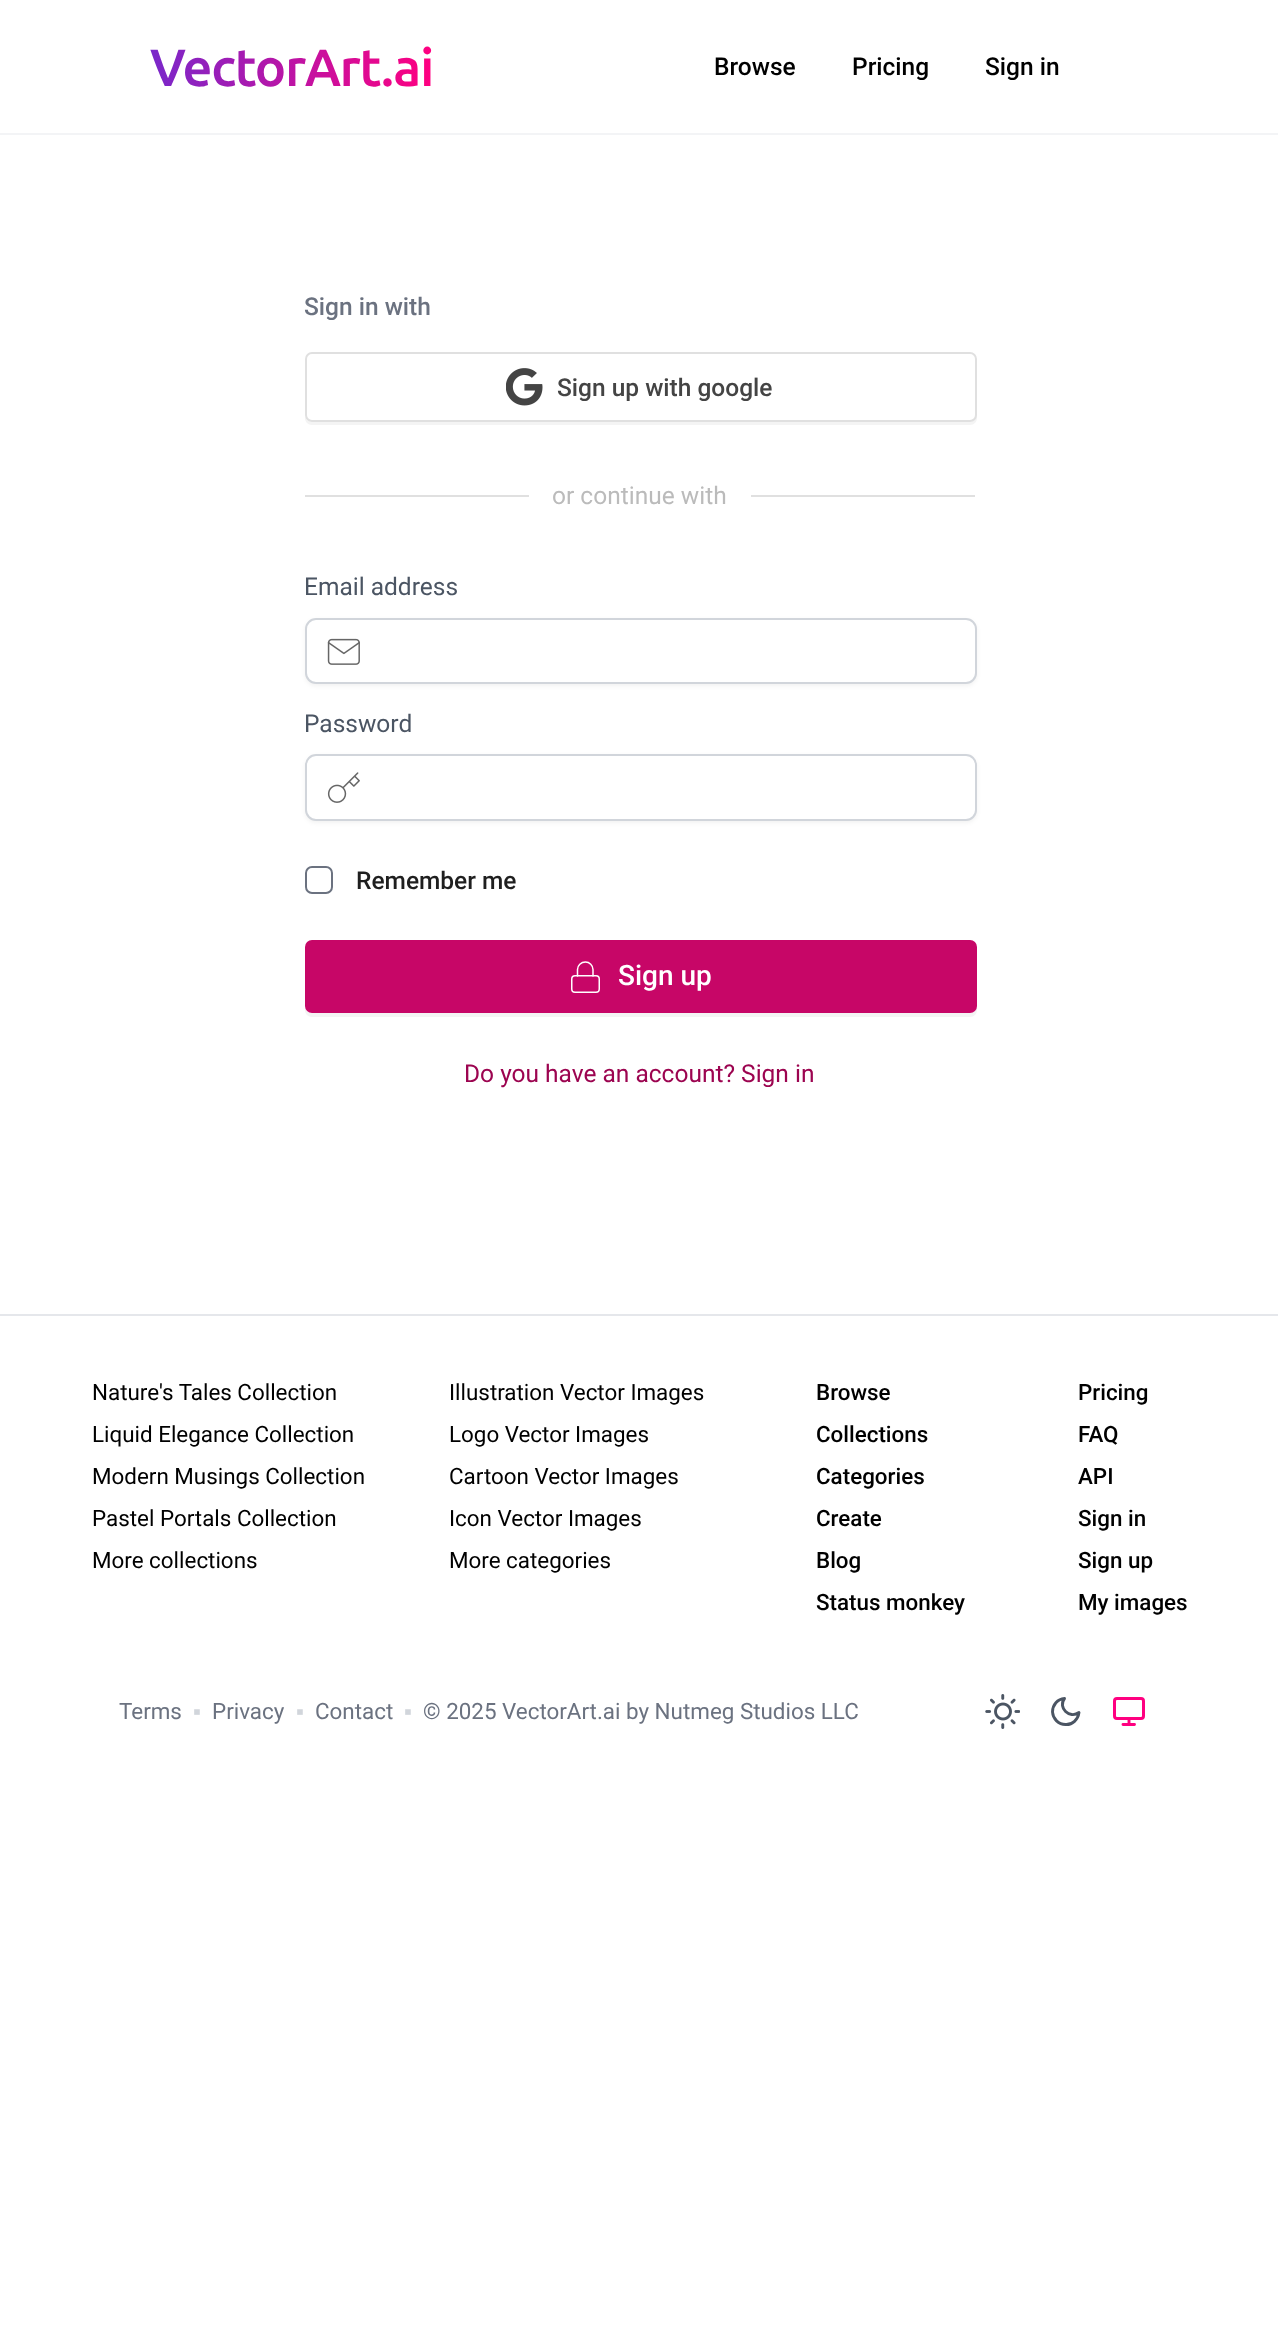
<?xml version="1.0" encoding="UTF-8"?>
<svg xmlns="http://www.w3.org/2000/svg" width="1278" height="2345">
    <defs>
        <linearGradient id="g1" gradientUnits="userSpaceOnUse" x1="150" y1="67" x2="432" y2="66"><stop offset="0" stop-color="#7928CA"/><stop offset="1" stop-color="#FF0080"/></linearGradient>
        <filter id="blur1" x="-50%" y="-200%" width="200%" height="500%"><feGaussianBlur stdDeviation="2"/></filter>
    </defs>
    <rect width="100%" height="100%" fill="#FFFFFF"/>
    <rect x="0" y="133" width="1278" height="2" fill="#F3F4F6"/>
    <text x="150" y="86" font-family="Ubuntu" font-size="52.5" font-weight="500" letter-spacing="-1.25" fill="url(#g1)">VectorArt.ai</text>
    <text x="714" y="75" font-family="Roboto" font-size="24.5" font-weight="500" fill="#000000">Browse</text>
    <text x="852" y="75" font-family="Roboto" font-size="24.5" font-weight="500" fill="#000000">Pricing</text>
    <text x="985" y="75" font-family="Roboto" font-size="24.5" font-weight="500" fill="#000000">Sign in</text>
    <text x="304" y="315" font-family="Roboto" font-size="24.5" font-weight="500" fill="#6B7280">Sign in with</text>
    <path d="M 305 417 V 418 C 305 422 308 425 312 425 H 970 C 974 425 977 422 977 418 V 362 L 976 359 V 415 C 976 419 973 422 970 422 H 312 C 309 422 306 420 305 417 Z" fill="#F4F4F4"/>
    <rect x="306" y="353" width="670" height="68" rx="6" fill="#FFFFFF" stroke="#E0E0E0" stroke-width="2"/>
    <image x="506" y="368" width="37" height="38" href="img_01.png"/>
    <text x="557" y="396" font-family="Roboto" font-size="24.5" font-weight="500" fill="#444444">Sign up with google</text>
    <rect x="305" y="495" width="224" height="2" fill="#E0E0E0"/>
    <text x="552" y="504" font-family="Roboto" font-size="24.5" fill="#BBBBBB">or continue with</text>
    <rect x="751" y="495" width="224" height="2" fill="#E0E0E0"/>
    <text x="304" y="595" font-family="Roboto" font-size="24.5" fill="#4B5563">Email address</text>
    <rect x="305" y="620" width="672" height="66" rx="11" fill="#000000" fill-opacity="0.05" filter="url(#blur1)"/>
    <rect x="306" y="619" width="670" height="64" rx="10" fill="#FFFFFF" stroke="#D1D5DB" stroke-width="2"/>
    <image x="327" y="638" width="33" height="27" href="img_02.png"/>
    <text x="304" y="732" font-family="Roboto" font-size="24.5" fill="#4B5563">Password</text>
    <rect x="305" y="756" width="672" height="67" rx="11" fill="#000000" fill-opacity="0.05" filter="url(#blur1)"/>
    <rect x="306" y="755" width="670" height="65" rx="10" fill="#FFFFFF" stroke="#D1D5DB" stroke-width="2"/>
    <image x="327" y="772" width="33" height="31" href="img_03.png"/>
    <rect x="306" y="867" width="26" height="26" rx="6" fill="none" stroke="#6B7280" stroke-width="2"/>
    <text x="356" y="889" font-family="Roboto" font-size="24.5" font-weight="500" fill="#1F1F1F">Remember me</text>
    <path d="M 305 1009 V 1010 C 305 1014 308 1017 312 1017 H 970 C 974 1017 977 1014 977 1010 V 950 L 976 947 V 1006 C 976 1010 973 1013 970 1013 H 312 C 309 1013 306 1011 305 1009 Z" fill="#F4F4F4"/>
    <rect x="305" y="940" width="672" height="73" rx="7" fill="#C70667"/>
    <rect x="571.75" y="975.75" width="27.5" height="16.5" rx="3.25" fill="none" stroke="#FFFFFF" stroke-width="1.5"/>
    <path d="M 577.5 976 V 969.5 C 577.5 965.5 581 962 585.5 962 C 589.5 962 593 965.5 593 969.5 V 976" fill="none" stroke="#FFFFFF" stroke-width="1.5" stroke-linecap="round" stroke-linejoin="round"/>
    <text x="618" y="985" font-family="Roboto" font-size="28" font-weight="500" fill="#FFFFFF">Sign up</text>
    <text x="464" y="1082" font-family="Roboto" font-size="24.5" fill="#9C0450">Do you have an account? Sign in</text>
    <rect x="0" y="1314" width="1278" height="2" fill="#E5E7EB"/>
    <text font-family="Roboto" font-size="22.4" fill="#000000">
        <tspan x="92" y="1400">Nature's Tales Collection</tspan>
        <tspan x="92" y="1442">Liquid Elegance Collection</tspan>
        <tspan x="92" y="1484">Modern Musings Collection</tspan>
        <tspan x="92" y="1526">Pastel Portals Collection</tspan>
        <tspan x="92" y="1568">More collections</tspan>
    </text>
    <text font-family="Roboto" font-size="22.4" fill="#000000">
        <tspan x="449" y="1400">Illustration Vector Images</tspan>
        <tspan x="449" y="1442">Logo Vector Images</tspan>
        <tspan x="449" y="1484">Cartoon Vector Images</tspan>
        <tspan x="449" y="1526">Icon Vector Images</tspan>
        <tspan x="449" y="1568">More categories</tspan>
    </text>
    <text font-family="Roboto" font-size="22.4" font-weight="500" fill="#000000">
        <tspan x="816" y="1400">Browse</tspan>
        <tspan x="816" y="1442">Collections</tspan>
        <tspan x="816" y="1484">Categories</tspan>
        <tspan x="816" y="1526">Create</tspan>
        <tspan x="816" y="1568">Blog</tspan>
        <tspan x="816" y="1610">Status monkey</tspan>
    </text>
    <text font-family="Roboto" font-size="22.4" font-weight="500" fill="#000000">
        <tspan x="1078" y="1400">Pricing</tspan>
        <tspan x="1078" y="1442">FAQ</tspan>
        <tspan x="1078" y="1484">API</tspan>
        <tspan x="1078" y="1526">Sign in</tspan>
        <tspan x="1078" y="1568">Sign up</tspan>
        <tspan x="1078" y="1610">My images</tspan>
    </text>
    <text x="119" y="1719" font-family="Roboto" font-size="22.4" fill="#6B7280">Terms</text>
    <text x="193" y="1719" font-family="Liberation Sans" font-size="22.4" fill="#D1D5DB">▪</text>
    <text x="212" y="1719" font-family="Roboto" font-size="22.4" fill="#6B7280">Privacy</text>
    <text x="296" y="1719" font-family="Liberation Sans" font-size="22.4" fill="#D1D5DB">▪</text>
    <text x="315" y="1719" font-family="Roboto" font-size="22.4" fill="#6B7280">Contact</text>
    <text x="404" y="1719" font-family="Liberation Sans" font-size="22.4" fill="#D1D5DB">▪</text>
    <text x="423" y="1719" font-family="Roboto" font-size="22.4" fill="#6B7280">© 2025 VectorArt.ai by Nutmeg Studios LLC</text>
    <image x="985" y="1694" width="35" height="35" href="img_04.png"/>
    <path d="M 1079 1712.5 C 1078 1719.5 1072.5 1725 1065.5 1724.5 C 1058.5 1724.5 1053 1719 1052.5 1712 C 1052.5 1705 1057.5 1699 1064.5 1698.5 C 1057.5 1707.5 1069.5 1719.5 1079 1712.5 Z" fill="none" stroke="#4B5563" stroke-width="2.9" stroke-linecap="round" stroke-linejoin="round"/>
    <rect x="1114.5" y="1698.5" width="29" height="20" rx="2.5" fill="none" stroke="#FF0080" stroke-width="3"/>
    <path d="M 1123 1724.5 H 1134.5 M 1129 1719 V 1724.5" fill="none" stroke="#FF0080" stroke-width="2.9" stroke-linecap="round" stroke-linejoin="round"/>
</svg>
